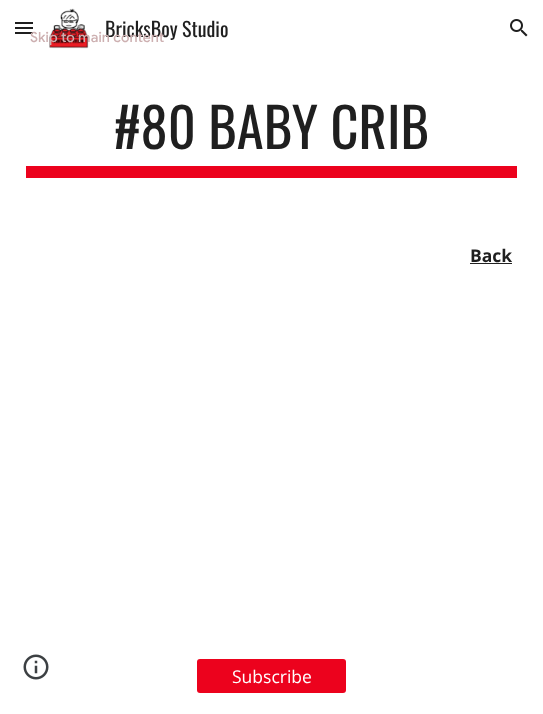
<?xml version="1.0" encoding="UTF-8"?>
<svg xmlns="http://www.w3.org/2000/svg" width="543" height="714">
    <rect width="100%" height="100%" fill="#FFFFFF"/>
    <rect x="15" y="32" width="18" height="2" fill="#1F1F1F"/>
    <image x="49" y="8" width="40" height="41" href="img_01.png"/>
    <text x="105" y="37" font-family="Oswald" font-size="20" fill="#1F1F1F">BricksBoy Studio</text>
    <text x="30" y="42" font-family="Google Sans" font-size="14" font-weight="500" letter-spacing="0.1" fill="#CDB0B1">Skip to main content</text>
    <rect x="15" y="22" width="18" height="2" fill="#1F1F1F"/>
    <rect x="15" y="27" width="18" height="2" fill="#1F1F1F"/>
    <image x="510" y="19" width="18" height="18" href="img_02.png"/>
    <image x="23" y="654" width="26" height="26" href="img_03.png"/>
    <text x="114" y="149" font-family="Oswald" font-size="54.5" fill="#1F1F1F">#80 BABY CRIB</text>
    <rect x="26" y="166" width="491" height="12" fill="#EC021D"/>
    <text x="470" y="262" font-family="Open Sans" font-size="17.5" font-weight="700" fill="#1F1F1F">Back</text>
    <rect x="470" y="263" width="42" height="1" fill="#212121"/>
    <rect x="197" y="659" width="149" height="34" rx="3" fill="#EC021D"/>
    <text x="232" y="683" font-family="Open Sans" font-size="17.5" fill="#FFFFFF">Subscribe</text>
</svg>
